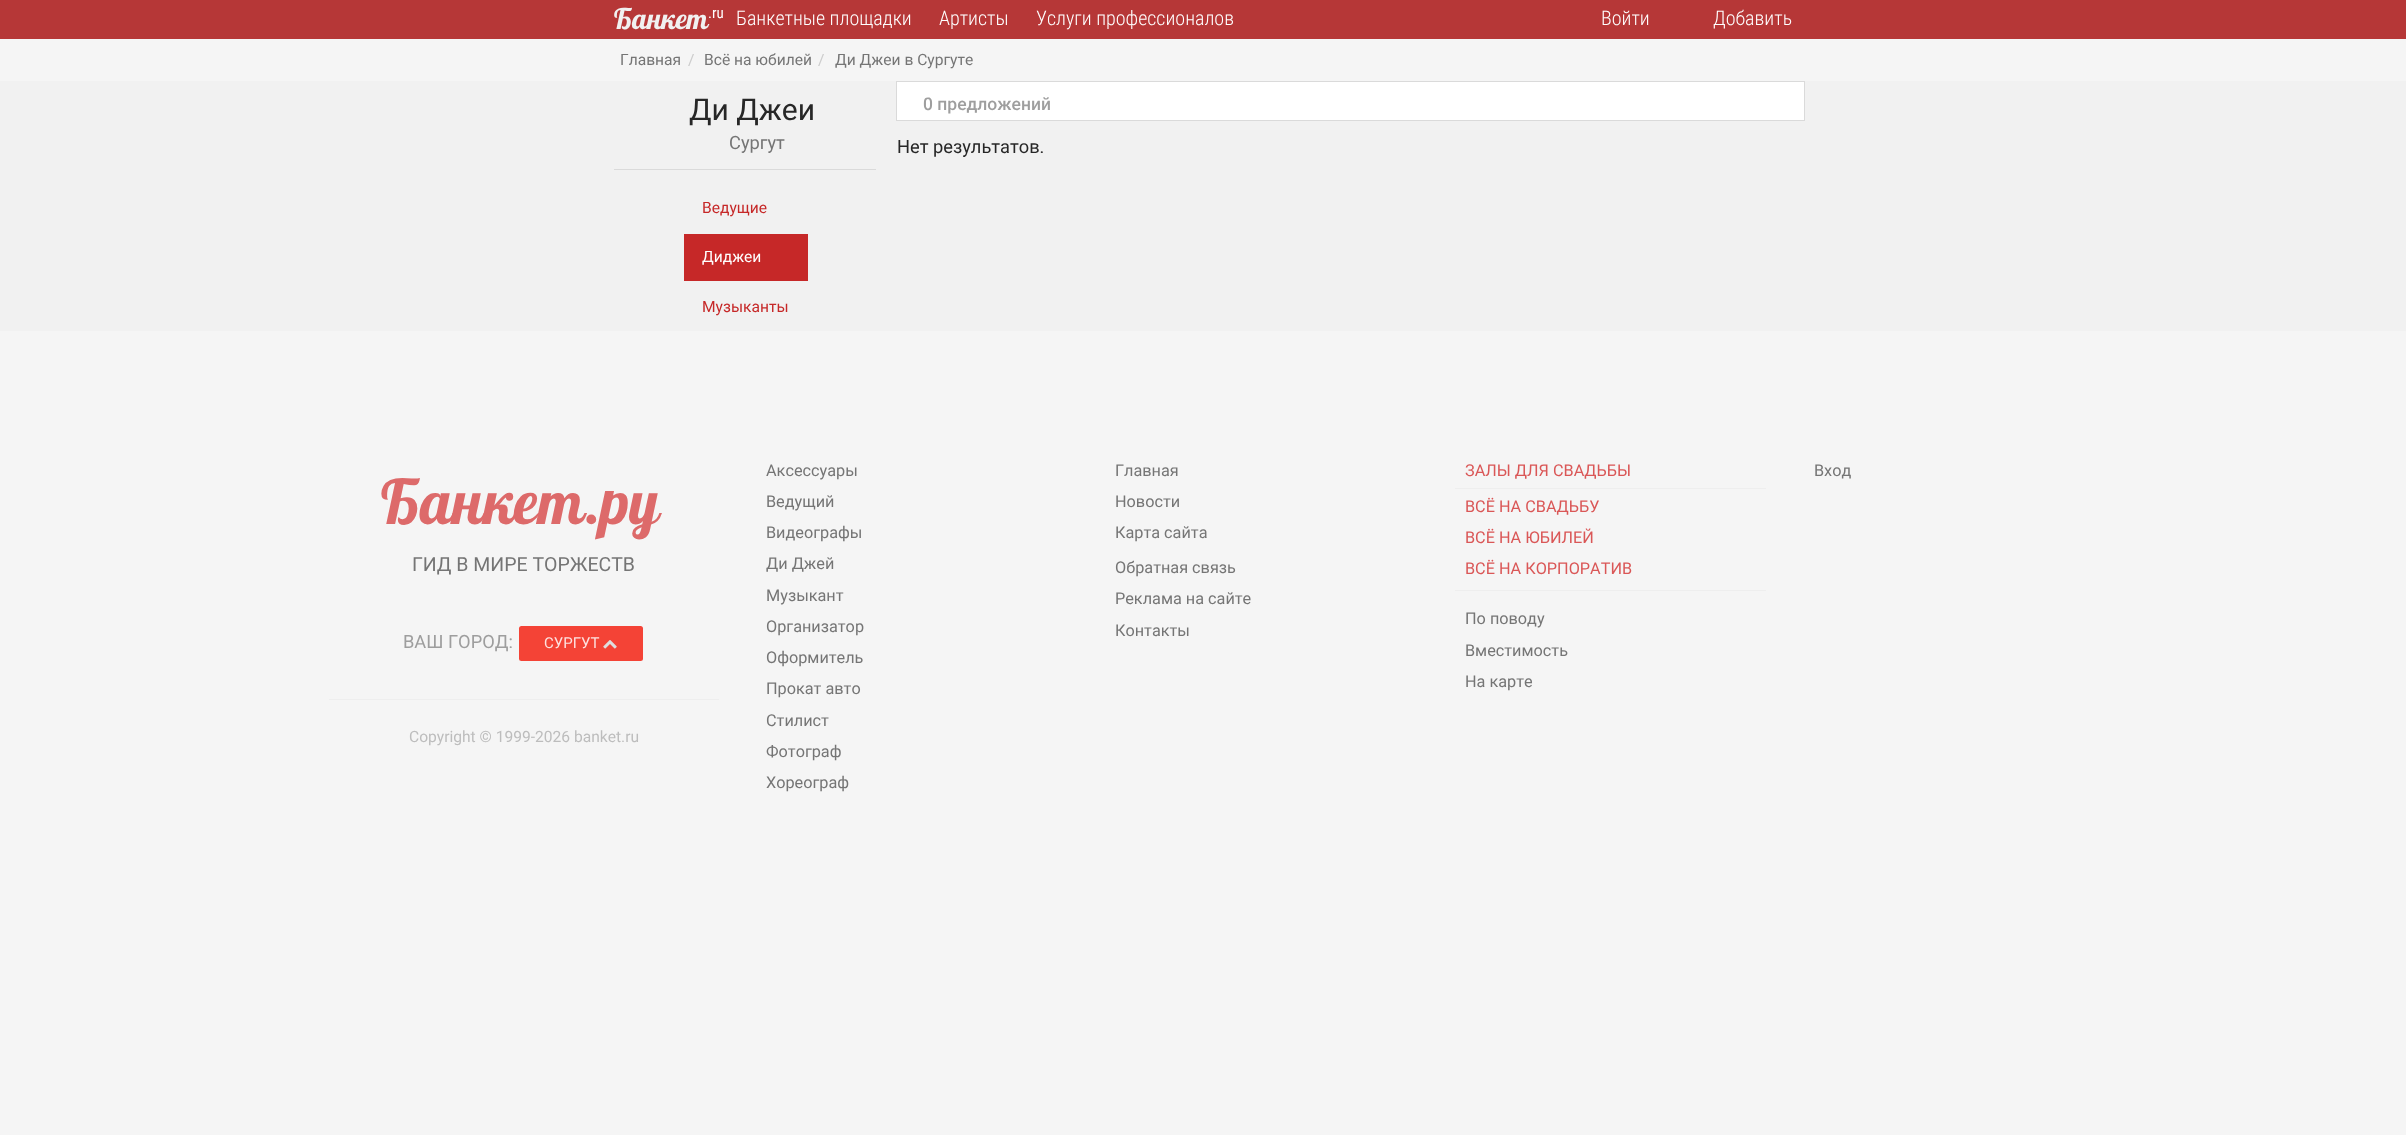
<?xml version="1.0" encoding="UTF-8"?>
<svg xmlns="http://www.w3.org/2000/svg" width="2406" height="1135">
    <style>*{font-kerning:none!important;font-variant-ligatures:none!important}</style>
    <rect width="100%" height="100%" fill="#F5F5F5"/>
    <rect x="0" y="0" width="2406" height="39" fill="#B63737"/>
    <text x="614" y="29" font-family="Lobster" font-size="28.5" fill="#F1F1F1">Банкет</text>
    <text x="708" y="18" font-family="Roboto Condensed" font-size="15" fill="#FFFFFF">.ru</text>
    <text x="736" y="25" font-family="Roboto Condensed" font-size="20" font-weight="300" fill="#FFFFFF">Банкетные площадки</text>
    <text x="939" y="25" font-family="Roboto Condensed" font-size="20" font-weight="300" fill="#FFFFFF">Артисты</text>
    <text x="1036" y="25" font-family="Roboto Condensed" font-size="20" font-weight="300" fill="#FFFFFF">Услуги профессионалов</text>
    <text x="1601" y="25" font-family="Roboto Condensed" font-size="20" font-weight="300" fill="#FFFFFF">Войти</text>
    <text x="1713" y="25" font-family="Roboto Condensed" font-size="20" font-weight="300" fill="#FFFFFF">Добавить</text>
    <text x="620" y="65" font-family="Roboto" font-size="15.6" fill="#757575">Главная</text>
    <text x="688" y="65" font-family="Roboto" font-size="15.6" fill="#CCCCCC">/</text>
    <text x="704" y="65" font-family="Roboto" font-size="15.6" fill="#757575">Всё на юбилей</text>
    <text x="818" y="65" font-family="Roboto" font-size="15.6" fill="#CCCCCC">/</text>
    <text x="835" y="65" font-family="Roboto" font-size="15.6" fill="#757575">Ди Джеи в Сургуте</text>
    <rect x="0" y="81" width="2406" height="250" fill="#F1F1F1"/>
    <text x="689" y="120" font-family="Roboto" font-size="30" fill="#272727">Ди Джеи</text>
    <text x="729" y="149" font-family="Roboto" font-size="18.25" fill="#757575">Сургут</text>
    <rect x="614" y="169" width="262" height="1" fill="#DADADA"/>
    <text x="702" y="213" font-family="Roboto" font-size="15.6" fill="#C62828">Ведущие</text>
    <rect x="684" y="234" width="124" height="47" fill="#C62828"/>
    <text x="702" y="262" font-family="Roboto" font-size="15.6" fill="#FFFFFF">Диджеи</text>
    <text x="702" y="312" font-family="Roboto" font-size="15.6" fill="#C62828">Музыканты</text>
    <rect x="896.5" y="81.5" width="908" height="39" fill="#FFFFFF" stroke="#DADADA"/>
    <text x="923" y="110" font-family="Roboto" font-size="17.5" font-weight="500" fill="#9E9E9E">0 предложений</text>
    <text x="897" y="153" font-family="Roboto" font-size="18.25" fill="#272727">Нет результатов.</text>
    <text x="381" y="524" font-family="Lobster" font-size="61.5" fill="#DD6A6A">Банкет.ру</text>
    <text x="412" y="571" font-family="Roboto" font-size="19.5" fill="#757575">ГИД В МИРЕ ТОРЖЕСТВ</text>
    <text x="403" y="648" font-family="Roboto" font-size="18.25" fill="#9E9E9E">ВАШ ГОРОД:</text>
    <rect x="519" y="626" width="124" height="35" rx="2.5" fill="#F44336"/>
    <text x="544" y="648" font-family="Roboto" font-size="15" fill="#FDE1DF">СУРГУТ</text>
    <image x="603" y="640" width="14" height="9" href="img_01.png"/>
    <rect x="329" y="699" width="390" height="1" fill="#EEEEEE"/>
    <text x="409" y="742" font-family="Roboto" font-size="15.6" fill="#BDBDBD">Copyright © 1999-2026 banket.ru</text>
    <text font-family="Roboto" font-size="16.25" fill="#757575">
        <tspan x="766" y="476">Аксессуары</tspan>
        <tspan x="766" y="507">Ведущий</tspan>
        <tspan x="766" y="538">Видеографы</tspan>
        <tspan x="766" y="569">Ди Джей</tspan>
        <tspan x="766" y="601">Музыкант</tspan>
        <tspan x="766" y="632">Организатор</tspan>
        <tspan x="766" y="663">Оформитель</tspan>
        <tspan x="766" y="694">Прокат авто</tspan>
        <tspan x="766" y="726">Стилист</tspan>
        <tspan x="766" y="757">Фотограф</tspan>
        <tspan x="766" y="788">Хореограф</tspan>
    </text>
    <text font-family="Roboto" font-size="16.25" fill="#757575">
        <tspan x="1115" y="476">Главная</tspan>
        <tspan x="1115" y="507">Новости</tspan>
        <tspan x="1115" y="538">Карта сайта</tspan>
    </text>
    <text font-family="Roboto" font-size="16.25" fill="#757575">
        <tspan x="1115" y="573">Обратная связь</tspan>
        <tspan x="1115" y="604">Реклама на сайте</tspan>
        <tspan x="1115" y="636">Контакты</tspan>
    </text>
    <text x="1465" y="476" font-family="Roboto" font-size="16.25" fill="#DA5757">ЗАЛЫ ДЛЯ СВАДЬБЫ</text>
    <rect x="1455" y="488" width="311" height="1" fill="#EEEEEE"/>
    <text font-family="Roboto" font-size="16.25" fill="#DA5757">
        <tspan x="1465" y="512">ВСЁ НА СВАДЬБУ</tspan>
        <tspan x="1465" y="543">ВСЁ НА ЮБИЛЕЙ</tspan>
        <tspan x="1465" y="574">ВСЁ НА КОРПОРАТИВ</tspan>
    </text>
    <rect x="1455" y="590" width="311" height="1" fill="#EEEEEE"/>
    <text font-family="Roboto" font-size="16.25" fill="#757575">
        <tspan x="1465" y="624">По поводу</tspan>
        <tspan x="1465" y="656">Вместимость</tspan>
        <tspan x="1465" y="687">На карте</tspan>
    </text>
    <text x="1814" y="476" font-family="Roboto" font-size="16.25" fill="#757575">Вход</text>
</svg>
